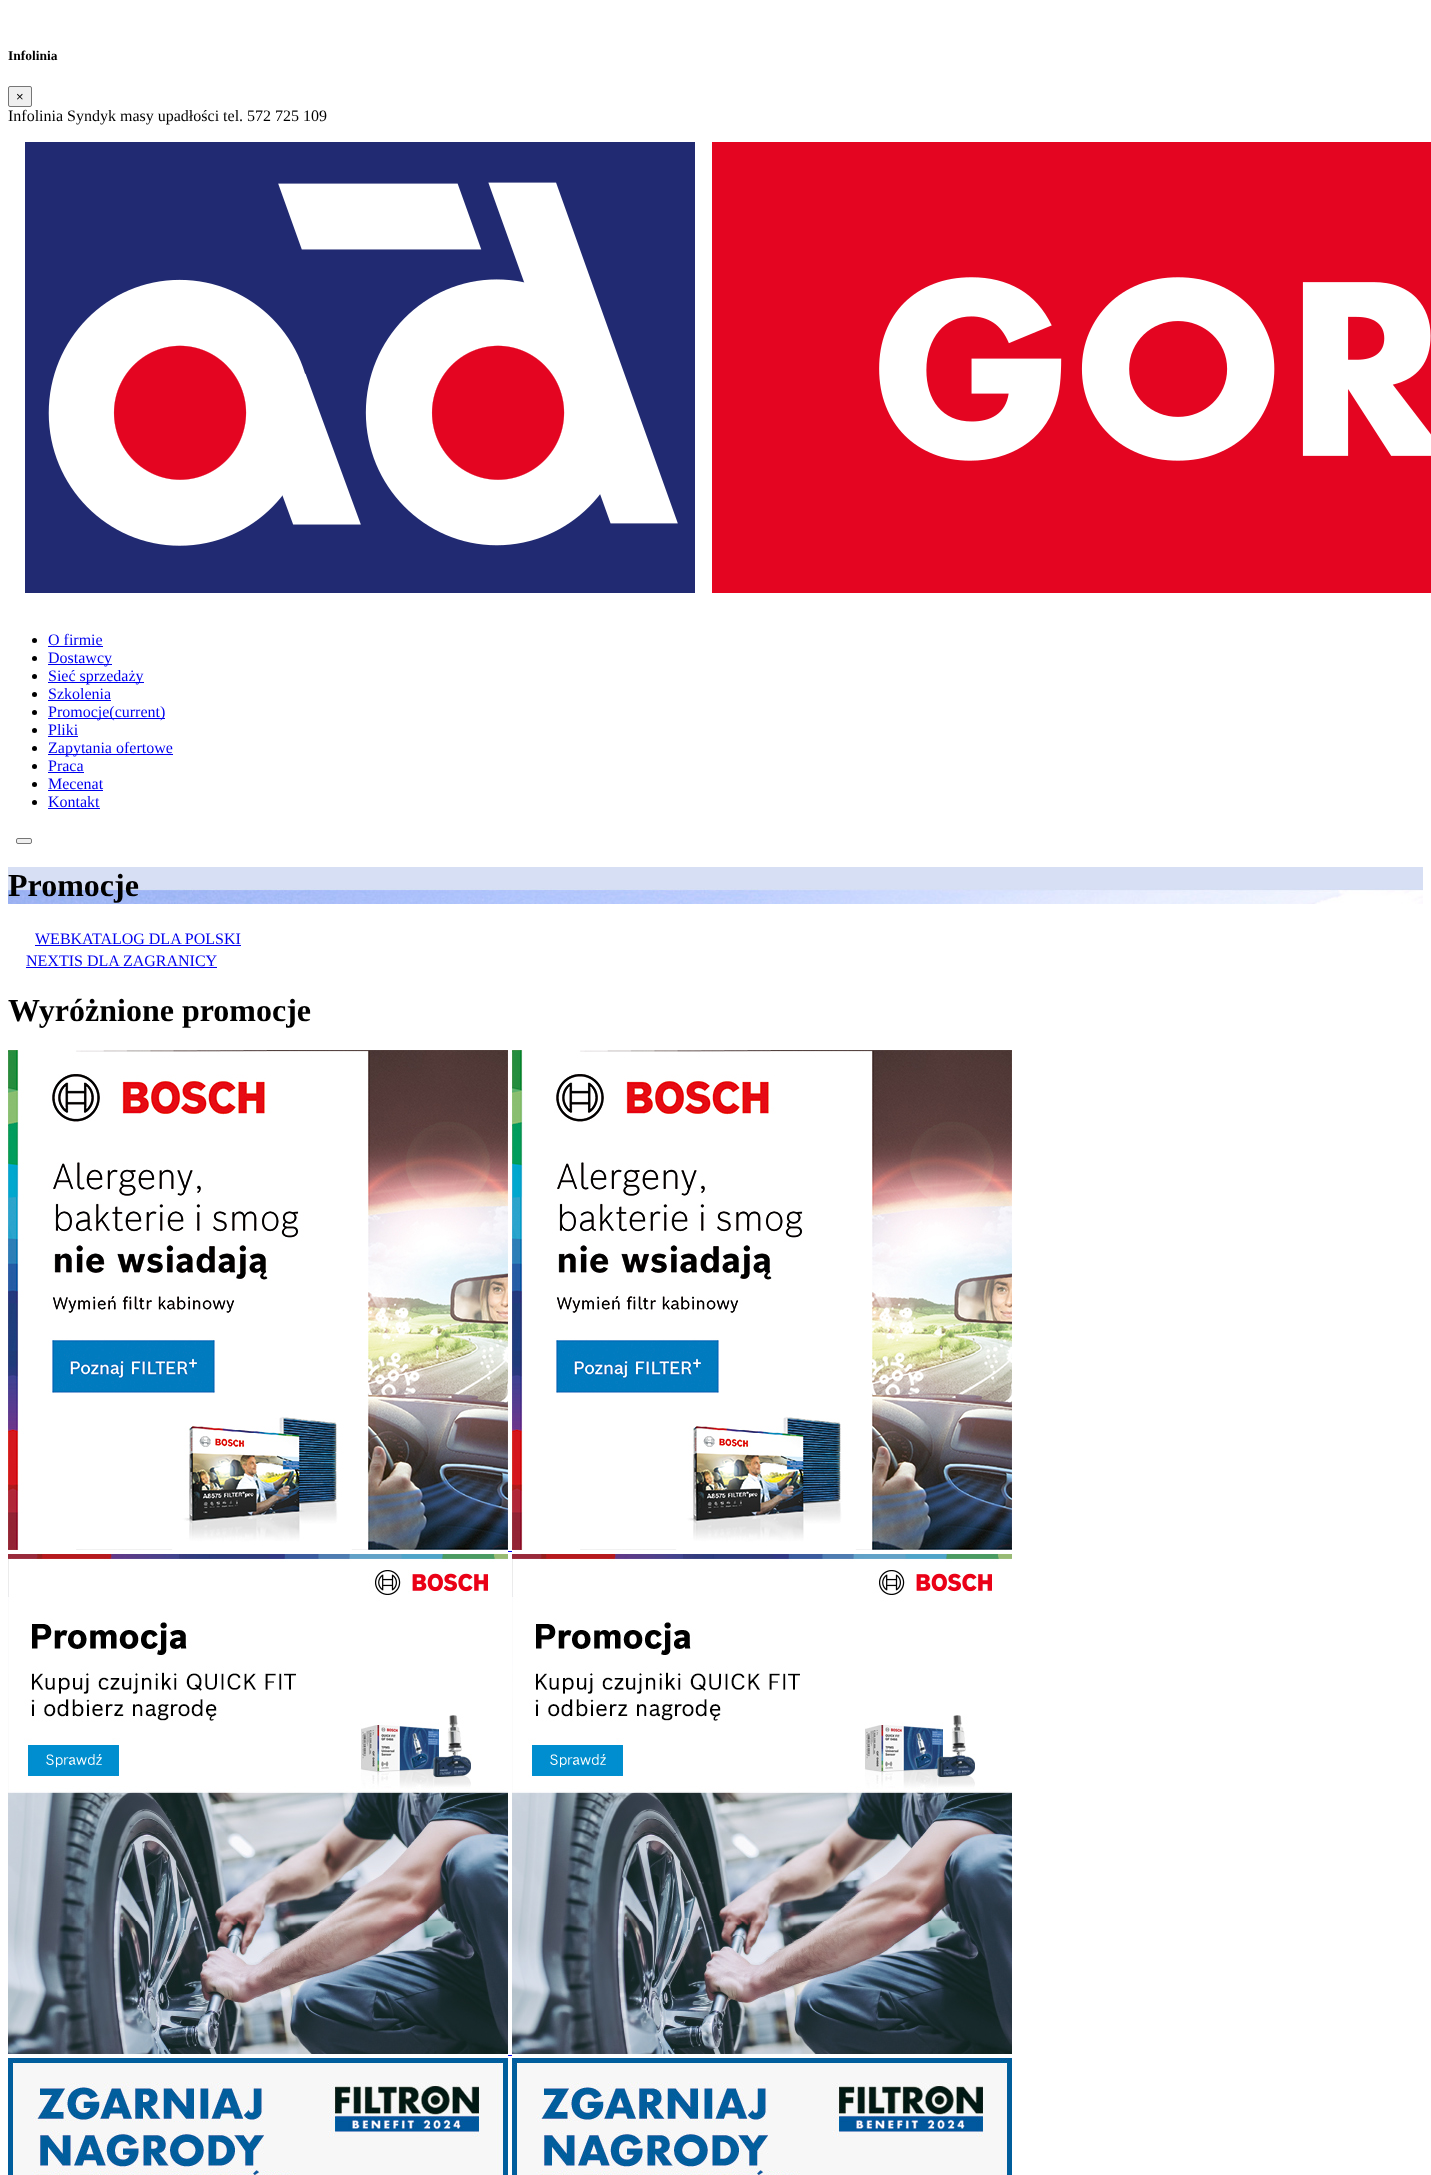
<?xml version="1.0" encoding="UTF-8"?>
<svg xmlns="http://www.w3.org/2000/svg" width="1431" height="2175">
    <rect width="100%" height="100%" fill="#FFFFFF"/>
    <text x="8" y="60" font-family="Liberation Serif" font-size="13.5" font-weight="700" fill="#000000">Infolinia</text>
    <rect x="8.5" y="86.5" width="23" height="20" rx="1.5" fill="#EFEFEF" stroke="#767676"/>
    <text x="16" y="101" font-family="Liberation Sans" font-size="13" fill="#000000">×</text>
    <text x="8" y="121" font-family="Liberation Serif" font-size="16" fill="#000000">Infolinia Syndyk masy upadłości tel. 572 725 109</text>
    <image x="25" y="142" width="1406" height="451" href="img_01.png"/>
    <circle cx="34.5" cy="640.5" r="2.5" fill="#000000"/>
    <text x="48" y="645" font-family="Liberation Serif" font-size="16" fill="#0000EE">O firmie</text>
    <rect x="48" y="646" width="55" height="1" fill="#0000EE"/>
    <circle cx="34.5" cy="658.5" r="2.5" fill="#000000"/>
    <rect x="48" y="664" width="64" height="1" fill="#0000EE"/>
    <text x="48" y="663" font-family="Liberation Serif" font-size="16" fill="#0000EE">Dostawcy</text>
    <circle cx="34.5" cy="676.5" r="2.5" fill="#000000"/>
    <rect x="48" y="682" width="96" height="1" fill="#0000EE"/>
    <text x="48" y="681" font-family="Liberation Serif" font-size="16" fill="#0000EE">Sieć sprzedaży</text>
    <circle cx="34.5" cy="694.5" r="2.5" fill="#000000"/>
    <text x="48" y="699" font-family="Liberation Serif" font-size="16" fill="#0000EE">Szkolenia</text>
    <rect x="48" y="700" width="63" height="1" fill="#0000EE"/>
    <circle cx="34.5" cy="712.5" r="2.5" fill="#000000"/>
    <rect x="48" y="718" width="117" height="1" fill="#0000EE"/>
    <text x="48" y="717" font-family="Liberation Serif" font-size="16" fill="#0000EE">Promocje(current)</text>
    <circle cx="34.5" cy="730.5" r="2.5" fill="#000000"/>
    <text x="48" y="735" font-family="Liberation Serif" font-size="16" fill="#0000EE">Pliki</text>
    <rect x="48" y="736" width="30" height="1" fill="#0000EE"/>
    <circle cx="34.5" cy="748.5" r="2.5" fill="#000000"/>
    <rect x="48" y="754" width="125" height="1" fill="#0000EE"/>
    <text x="48" y="753" font-family="Liberation Serif" font-size="16" fill="#0000EE">Zapytania ofertowe</text>
    <circle cx="34.5" cy="766.5" r="2.5" fill="#000000"/>
    <text x="48" y="771" font-family="Liberation Serif" font-size="16" fill="#0000EE">Praca</text>
    <rect x="48" y="772" width="36" height="1" fill="#0000EE"/>
    <circle cx="34.5" cy="784.5" r="2.5" fill="#000000"/>
    <text x="48" y="789" font-family="Liberation Serif" font-size="16" fill="#0000EE">Mecenat</text>
    <rect x="48" y="790" width="55" height="1" fill="#0000EE"/>
    <circle cx="34.5" cy="802.5" r="2.5" fill="#000000"/>
    <text x="48" y="807" font-family="Liberation Serif" font-size="16" fill="#0000EE">Kontakt</text>
    <rect x="48" y="808" width="52" height="1" fill="#0000EE"/>
    <rect x="16.5" y="838.5" width="15" height="5" rx="1.5" fill="#EFEFEF" stroke="#767676"/>
    <image x="8" y="867" width="1415" height="37" href="img_02.png"/>
    <text x="8" y="896" font-family="Liberation Serif" font-size="32" font-weight="700" fill="#000000">Promocje</text>
    <text x="35" y="944" font-family="Liberation Serif" font-size="16" fill="#0000EE">WEBKATALOG DLA POLSKI</text>
    <rect x="35" y="945" width="206" height="1" fill="#0000EE"/>
    <text x="26" y="966" font-family="Liberation Serif" font-size="16" fill="#0000EE">NEXTIS DLA ZAGRANICY</text>
    <rect x="26" y="967" width="191" height="1" fill="#0000EE"/>
    <text x="8" y="1021" font-family="Liberation Serif" font-size="32" font-weight="700" fill="#000000">Wyróżnione promocje</text>
    <image x="8" y="1050" width="500" height="500" href="img_03.png"/>
    <image x="512" y="1050" width="500" height="500" href="img_03.png"/>
    <rect x="508" y="1551" width="4" height="1" fill="#0000EE"/>
    <image x="8" y="1554" width="500" height="500" href="img_04.png"/>
    <image x="512" y="1554" width="500" height="500" href="img_04.png"/>
    <rect x="508" y="2055" width="4" height="1" fill="#0000EE"/>
    <image x="8" y="2058" width="500" height="117" href="img_05.png"/>
    <image x="512" y="2058" width="500" height="117" href="img_05.png"/>
</svg>
